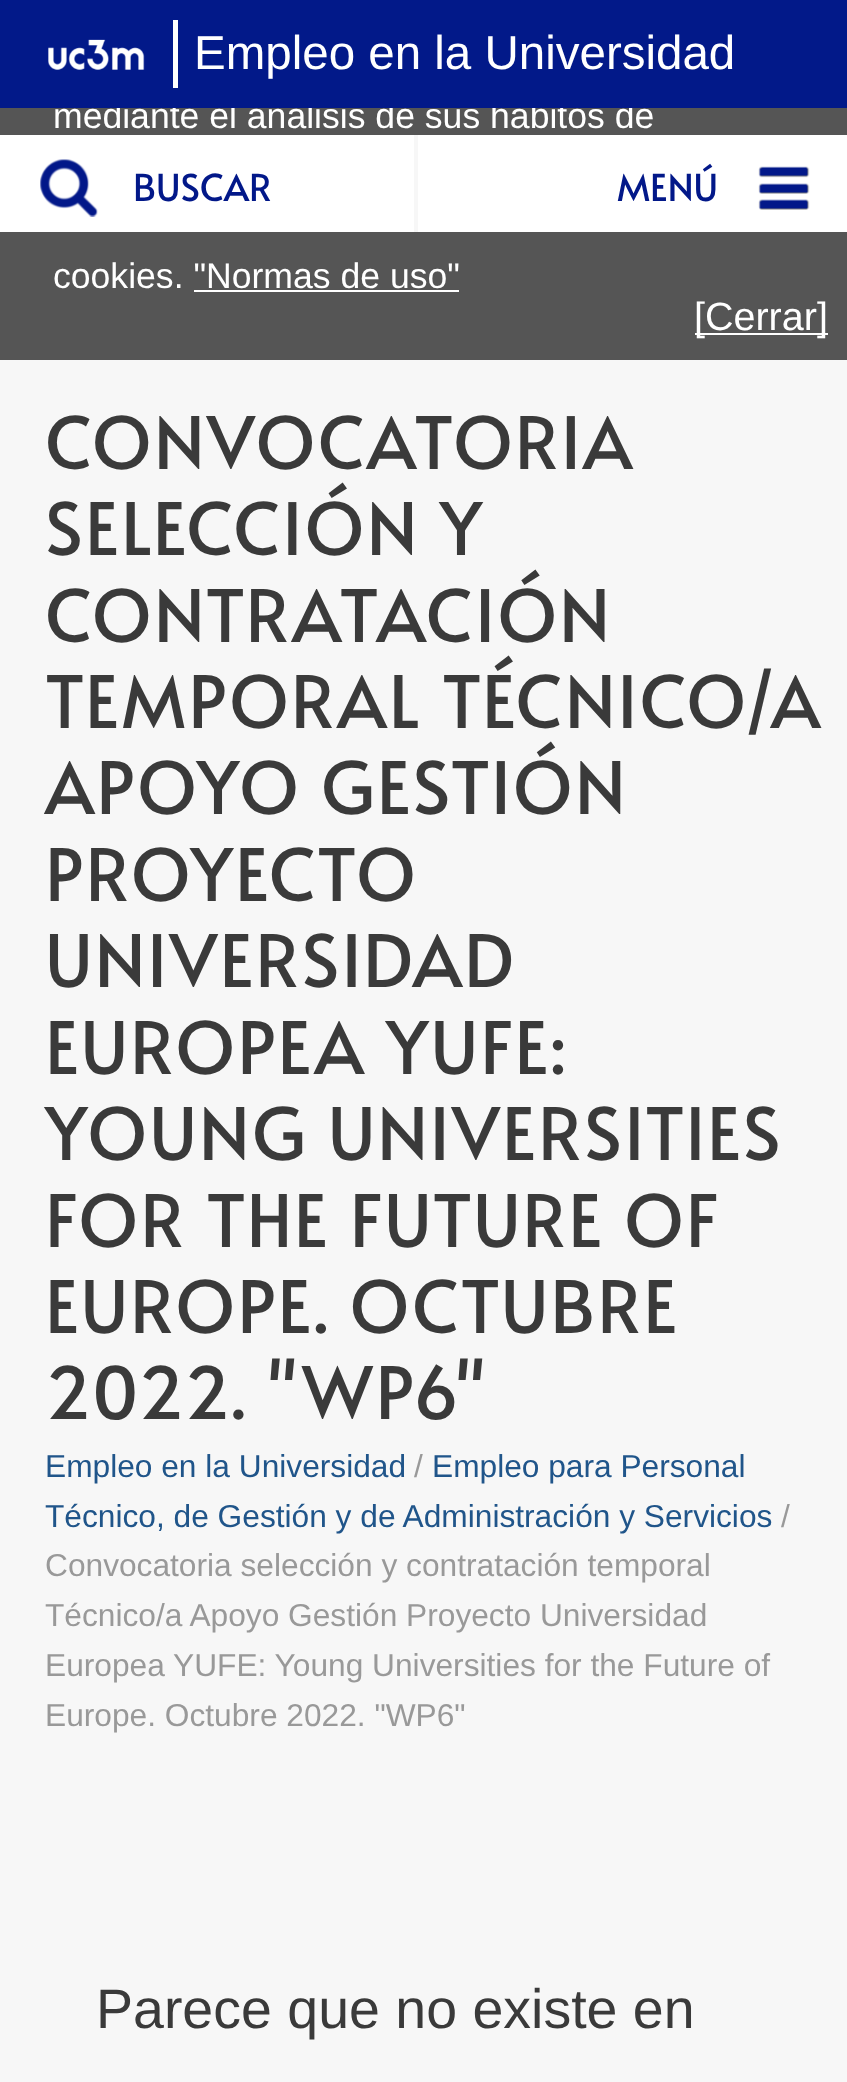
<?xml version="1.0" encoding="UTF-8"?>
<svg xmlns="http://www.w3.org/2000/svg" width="847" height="2082">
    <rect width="100%" height="100%" fill="#F7F7F7"/>
    <rect x="0" y="108" width="847" height="252" fill="#555555"/>
    <text x="53" y="128" font-family="Liberation Sans" font-size="35.6" fill="#FFFFFF">mediante el análisis de sus hábitos de</text>
    <rect x="0" y="0" width="847" height="108" fill="#021989"/>
    <rect x="173" y="20" width="5" height="68" fill="#FFFFFF"/>
    <image x="48" y="39" width="97" height="31" href="img_01.png"/>
    <text x="194" y="69" font-family="Liberation Sans" font-size="47.5" fill="#FFFFFF">Empleo en la Universidad</text>
    <rect x="0" y="135" width="847" height="97" fill="#FFFFFF"/>
    <rect x="414" y="135" width="4" height="97" fill="#F7F7F7"/>
    <image x="40" y="159" width="58" height="58" href="img_02.png"/>
    <text x="133" y="201" font-family="Alata" font-size="37" fill="#021889">BUSCAR</text>
    <text x="617" y="201" font-family="Alata" font-size="37" fill="#021889">MENÚ</text>
    <image x="758" y="166" width="52" height="44" href="img_03.png"/>
    <text font-family="Alata" font-size="72" letter-spacing="2.25" fill="#3A3A3A">
        <tspan x="45" y="469">CONVOCATORIA</tspan>
        <tspan x="45" y="555">SELECCIÓN Y</tspan>
        <tspan x="45" y="642">CONTRATACIÓN</tspan>
        <tspan x="45" y="728">TEMPORAL TÉCNICO/A</tspan>
        <tspan x="45" y="814">APOYO GESTIÓN</tspan>
        <tspan x="45" y="901">PROYECTO</tspan>
        <tspan x="45" y="987">UNIVERSIDAD</tspan>
        <tspan x="45" y="1074">EUROPEA YUFE:</tspan>
        <tspan x="45" y="1160">YOUNG UNIVERSITIES</tspan>
        <tspan x="45" y="1247">FOR THE FUTURE OF</tspan>
        <tspan x="45" y="1333">EUROPE. OCTUBRE</tspan>
        <tspan x="45" y="1419">2022. "WP6"</tspan>
    </text>
    <text x="45" y="1477" font-family="Liberation Sans" font-size="31.7" fill="#20558A">Empleo en la Universidad</text>
    <text x="414" y="1477" font-family="Liberation Sans" font-size="31.7" fill="#999999">/</text>
    <text x="432" y="1477" font-family="Liberation Sans" font-size="31.7" fill="#20558A">Empleo para Personal</text>
    <text x="45" y="1527" font-family="Liberation Sans" font-size="31.7" fill="#20558A">Técnico, de Gestión y de Administración y Servicios</text>
    <text x="781" y="1527" font-family="Liberation Sans" font-size="31.7" fill="#999999">/</text>
    <text font-family="Liberation Sans" font-size="31.7" fill="#999999">
        <tspan x="45" y="1576">Convocatoria selección y contratación temporal</tspan>
        <tspan x="45" y="1626">Técnico/a Apoyo Gestión Proyecto Universidad</tspan>
        <tspan x="45" y="1676">Europea YUFE: Young Universities for the Future of</tspan>
        <tspan x="45" y="1726">Europe. Octubre 2022. "WP6"</tspan>
    </text>
    <text x="96" y="2028" font-family="Liberation Sans" font-size="55.5" fill="#3A3A3A">Parece que no existe en</text>
    <text x="53" y="288" font-family="Liberation Sans" font-size="35.6" fill="#FFFFFF">cookies. "Normas de uso"</text>
    <rect x="194" y="290" width="265" height="2" fill="#FFFFFF"/>
    <rect x="695" y="333" width="133" height="2" fill="#FFFFFF"/>
    <text x="694" y="330" font-family="Liberation Sans" font-size="39.5" fill="#FFFFFF">[Cerrar]</text>
</svg>
